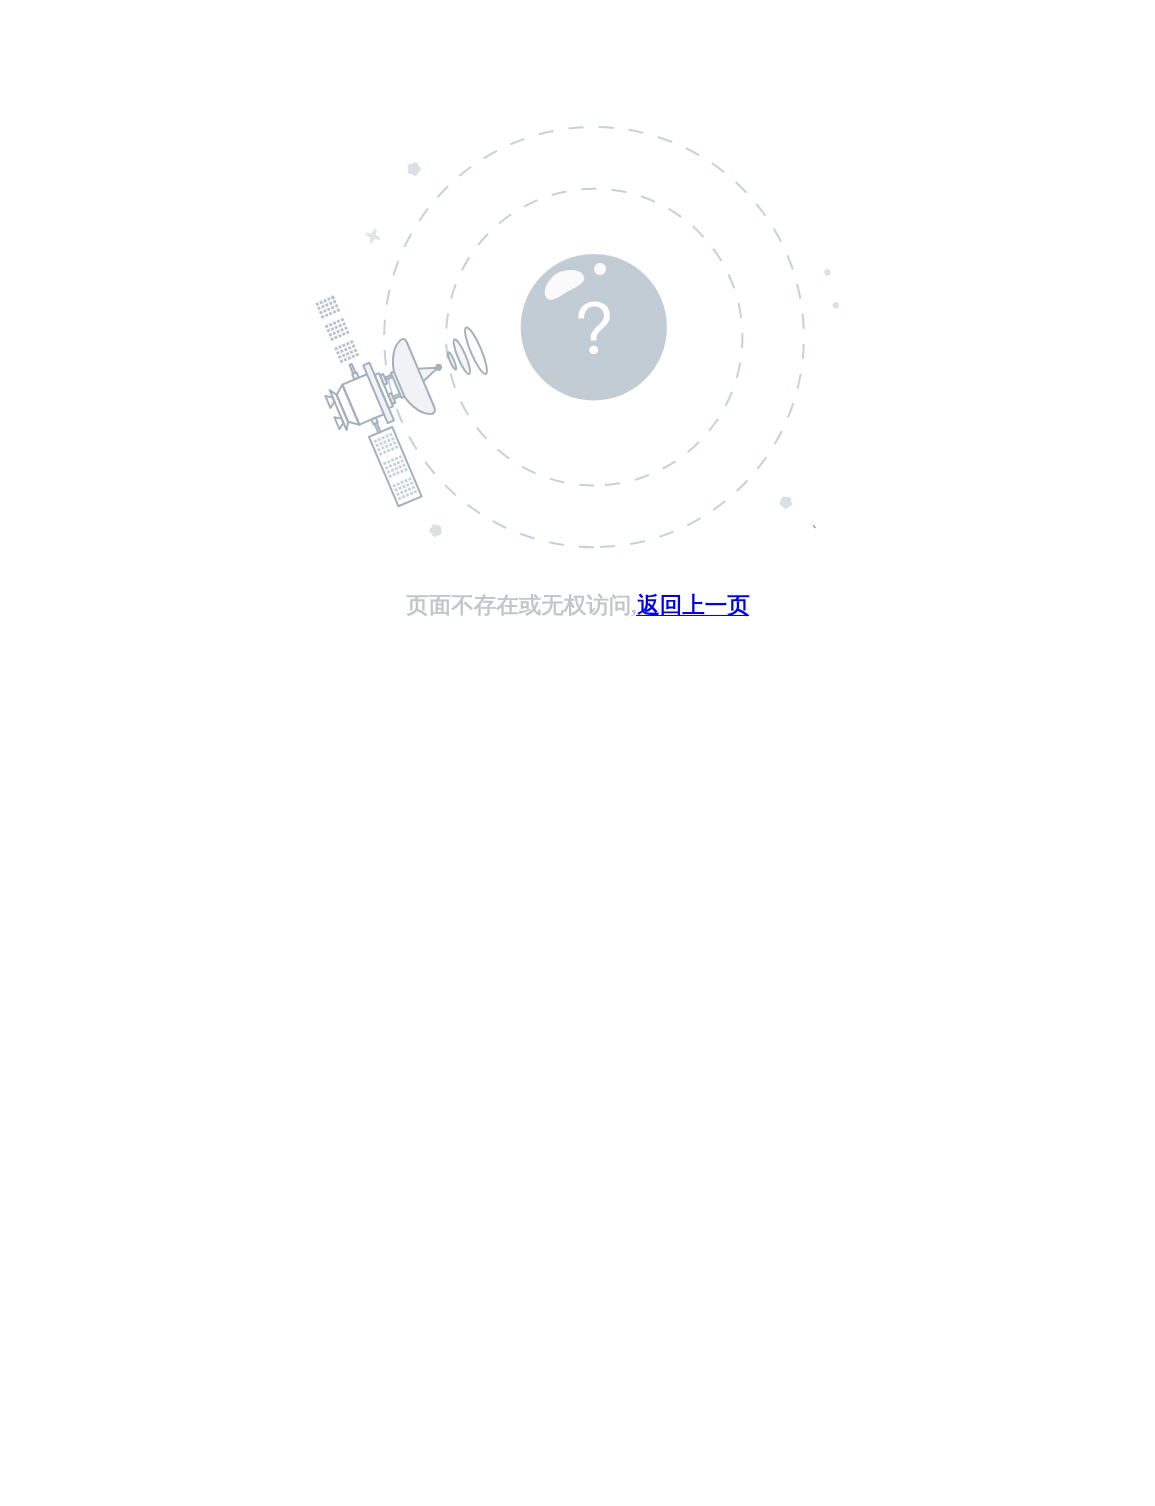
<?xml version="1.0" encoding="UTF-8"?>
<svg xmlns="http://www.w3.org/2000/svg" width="1155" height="1506">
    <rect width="100%" height="100%" fill="#FFFFFF"/>
    <image x="315" y="126" width="524" height="423" href="img_01.png"/>
    <text x="406" y="613" font-family="WenQuanYi Zen Hei" font-size="22.5" font-weight="700" fill="#C1C6CC">页面不存在或无权访问</text>
    <text x="631" y="613" font-family="Liberation Serif" font-size="22.5" font-weight="700" fill="#C1C6CC">,</text>
    <rect x="636" y="615" width="113" height="1" fill="#0000EE"/>
    <text x="637" y="613" font-family="WenQuanYi Zen Hei" font-size="22.5" font-weight="700" fill="#0000EE">返回上一页</text>
</svg>
